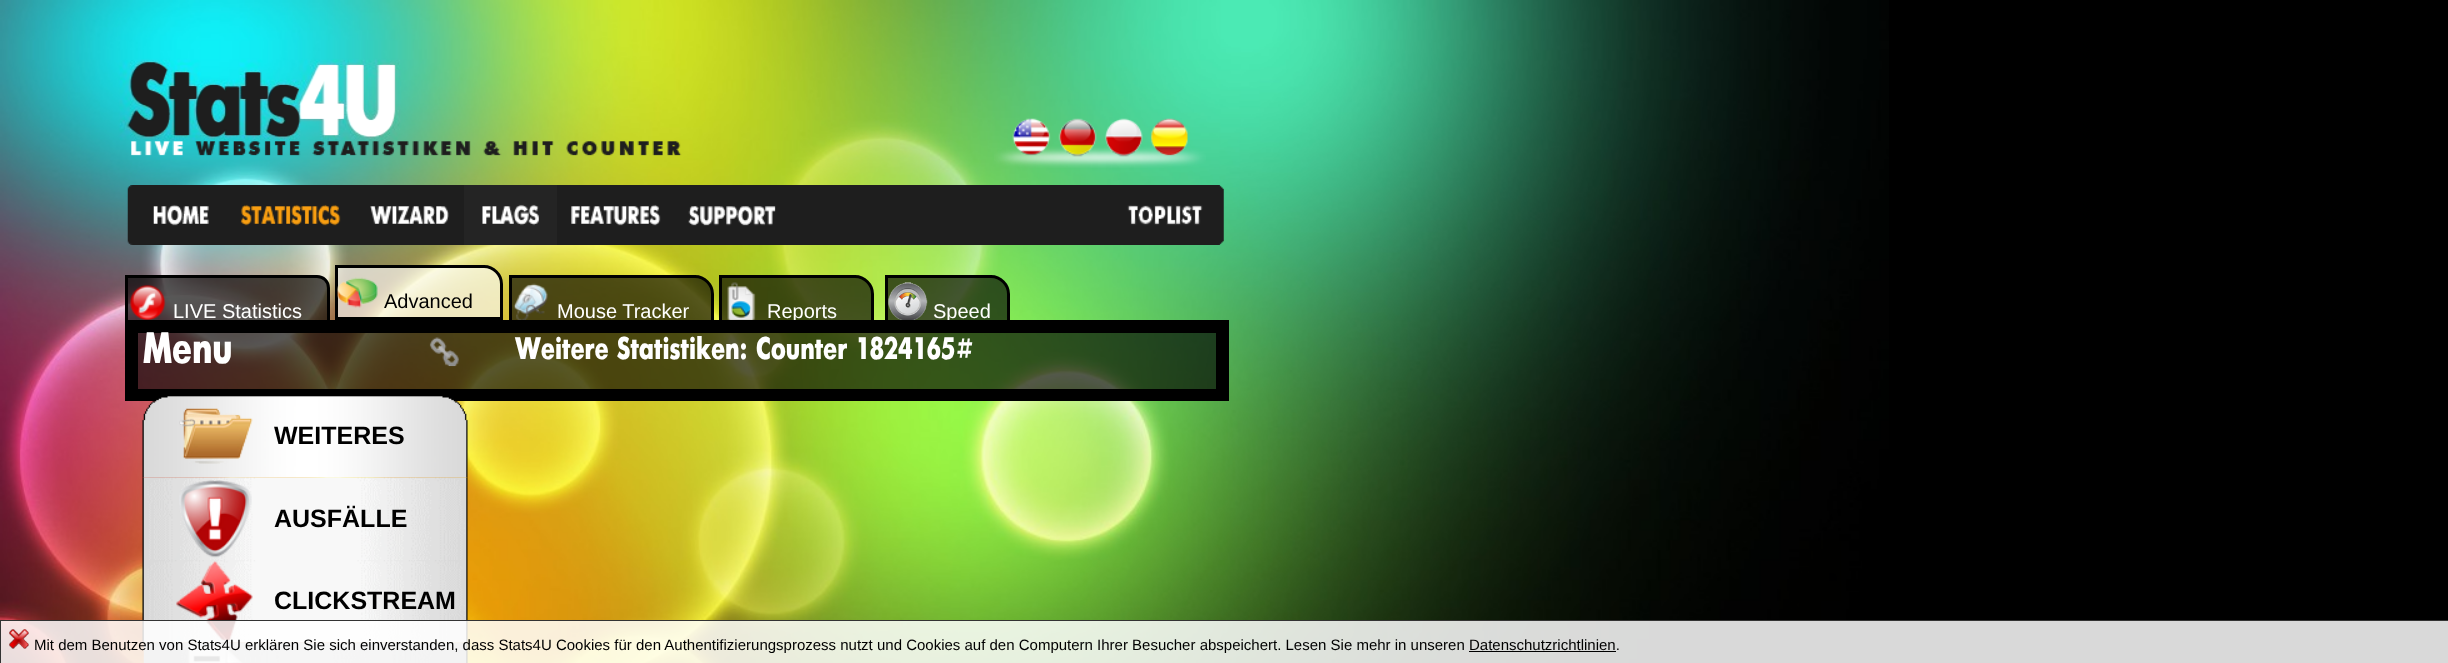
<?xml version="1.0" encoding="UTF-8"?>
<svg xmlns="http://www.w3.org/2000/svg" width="2448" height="663">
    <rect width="100%" height="100%" fill="#000000"/>
    <image x="0" y="0" width="1889" height="663" href="img_01.png"/>
    <image x="128" y="62" width="554" height="94" href="img_02.png"/>
    <image x="127" y="185" width="98" height="60" href="img_03.png"/>
    <rect x="225" y="185" width="239" height="60" fill="#1E1E1E"/>
    <image x="240" y="204" width="101" height="22" href="img_04.png"/>
    <rect x="557" y="185" width="561" height="60" fill="#1E1E1E"/>
    <image x="464" y="185" width="93" height="60" href="img_05.png"/>
    <image x="1118" y="185" width="106" height="60" href="img_06.png"/>
    <image x="370" y="206" width="79" height="18" href="img_07.png"/>
    <image x="571" y="204" width="90" height="22" href="img_08.png"/>
    <image x="688" y="206" width="88" height="20" href="img_09.png"/>
    <image x="994" y="118" width="212" height="50" href="img_10.png"/>
    <path d="M 336.5 266.5 H 484 C 493.5 266.5 501.5 274.5 501.5 284 V 318.5 H 336.5 Z" fill="#FFFFFF" fill-opacity="0.65" stroke="#000000" stroke-width="3"/>
    <image x="337" y="277" width="41" height="31" href="img_11.png"/>
    <text x="384" y="308" font-family="Liberation Sans" font-size="20" fill="#000000">Advanced</text>
    <path d="M 126.5 276.5 H 317 C 323.5 276.5 328.5 281.5 328.5 288 V 328.5 H 126.5 Z" fill="#000000" fill-opacity="0.65" stroke="#000000" stroke-width="3"/>
    <image x="129" y="284" width="37" height="36" href="img_12.png"/>
    <text x="173" y="318" font-family="Liberation Sans" font-size="20" fill="#FFFFFF">LIVE Statistics</text>
    <path d="M 510.5 276.5 H 695 C 704.5 276.5 712.5 284.5 712.5 294 V 328.5 H 510.5 Z" fill="#000000" fill-opacity="0.65" stroke="#000000" stroke-width="3"/>
    <image x="513" y="283" width="35" height="37" href="img_13.png"/>
    <text x="557" y="318" font-family="Liberation Sans" font-size="20" fill="#FFFFFF">Mouse Tracker</text>
    <path d="M 720.5 276.5 H 855 C 864.5 276.5 872.5 284.5 872.5 294 V 328.5 H 720.5 Z" fill="#000000" fill-opacity="0.65" stroke="#000000" stroke-width="3"/>
    <image x="727" y="282" width="29" height="38" href="img_14.png"/>
    <text x="767" y="318" font-family="Liberation Sans" font-size="20" fill="#FFFFFF">Reports</text>
    <path d="M 886.5 276.5 H 991 C 1000.5 276.5 1008.5 284.5 1008.5 294 V 328.5 H 886.5 Z" fill="#000000" fill-opacity="0.65" stroke="#000000" stroke-width="3"/>
    <image x="888" y="282" width="40" height="38" href="img_15.png"/>
    <text x="933" y="318" font-family="Liberation Sans" font-size="20" fill="#FFFFFF">Speed</text>
    <rect x="138" y="333" width="1078" height="56" fill="#000000" fill-opacity="0.65"/>
    <rect x="138" y="320" width="1078" height="13" fill="#000000"/>
    <rect x="1216" y="320" width="13" height="69" fill="#000000"/>
    <rect x="138" y="389" width="1091" height="12" fill="#000000"/>
    <rect x="125" y="320" width="13" height="81" fill="#000000"/>
    <text x="143" y="363" font-family="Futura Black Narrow" font-size="44" font-weight="700" fill="#FFFFFF">Menu</text>
    <image x="429" y="337" width="30" height="30" href="img_16.png"/>
    <image x="142" y="396" width="326" height="82" href="img_17.png"/>
    <image x="179" y="408" width="74" height="56" href="img_18.png"/>
    <text x="274" y="444" font-family="Liberation Sans" font-size="25" font-weight="700" fill="#000000">WEITERES</text>
    <image x="142" y="477" width="326" height="83" href="img_19.png"/>
    <image x="179" y="480" width="73" height="78" href="img_20.png"/>
    <text x="274" y="527" font-family="Liberation Sans" font-size="25" font-weight="700" fill="#000000">AUSFÄLLE</text>
    <image x="142" y="560" width="326" height="83" href="img_21.png"/>
    <image x="176" y="561" width="77" height="81" href="img_22.png"/>
    <text x="274" y="609" font-family="Liberation Sans" font-size="25" font-weight="700" fill="#000000">CLICKSTREAM</text>
    <image x="143" y="642" width="325" height="21" href="img_23.png"/>
    <image x="187" y="645" width="56" height="18" href="img_24.png"/>
    <text x="515" y="359" font-family="Futura Black Narrow" font-size="31.25" font-weight="700" fill="#FFFFFF">Weitere Statistiken: Counter 1824165#</text>
    <rect x="0.5" y="620.5" width="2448" height="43" fill="#FFFFFF" fill-opacity="0.85" stroke="#333333"/>
    <image x="9" y="629" width="20" height="20" href="img_25.png"/>
    <text x="34" y="650" font-family="Liberation Sans" font-size="15" fill="#000000">Mit dem Benutzen von Stats4U erklären Sie sich einverstanden, dass Stats4U Cookies für den Authentifizierungsprozess nutzt und Cookies auf den Computern Ihrer Besucher abspeichert. Lesen Sie mehr in unseren Datenschutzrichtlinien.</text>
    <rect x="1469" y="651" width="147" height="1" fill="#000000"/>
</svg>
